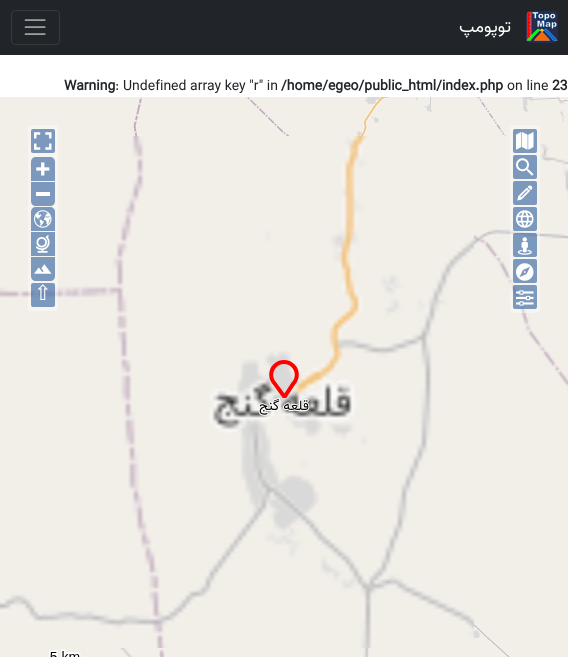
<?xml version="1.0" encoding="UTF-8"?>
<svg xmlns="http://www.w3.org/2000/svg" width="568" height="657">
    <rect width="100%" height="100%" fill="#FFFFFF"/>
    <rect x="0" y="0" width="568" height="55" fill="#212529"/>
    <rect x="11.5" y="10.5" width="48" height="34" rx="3.5" fill="none" stroke="#373B3E"/>
    <image x="24" y="19" width="22" height="16" href="img_01.png"/>
    <text x="511" y="32" font-family="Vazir" font-size="17.5" direction="rtl" fill="#FFFFFF">توپومپ</text>
    <image x="526" y="11" width="32" height="32" href="img_02.png"/>
    <text x="64" y="90" font-family="Vazir" font-size="14" font-weight="700" fill="#212529">Warning</text>
    <text x="115" y="90" font-family="Vazir" font-size="14" fill="#212529">: Undefined array key "r" in</text>
    <text x="281" y="90" font-family="Vazir" font-size="14" font-weight="700" fill="#212529">/home/egeo/public_html/index.php</text>
    <text x="507" y="90" font-family="Vazir" font-size="14" fill="#212529">on line</text>
    <text x="552" y="90" font-family="Vazir" font-size="14" font-weight="700" fill="#212529">23</text>
    <image x="0" y="97" width="568" height="560" href="img_03.png"/>
    <image x="258" y="360" width="52" height="56" href="img_04.png"/>
    <rect x="28" y="125" width="30" height="186" rx="4" fill="#FFFFFF" fill-opacity="0.4"/>
    <rect x="31" y="129" width="24" height="24" rx="2" fill="#7C99BD"/>
    <image x="34" y="132" width="18" height="18" href="img_05.png"/>
    <path d="M 36 157 H 50 C 53 157 55 159 55 162 V 181 H 31 V 162 C 31 159 33 157 36 157 Z" fill="#7C99BD"/>
    <image x="36" y="162" width="14" height="14" href="img_06.png"/>
    <path d="M 31 182 H 55 V 201 C 55 204 53 206 50 206 H 36 C 33 206 31 204 31 201 Z" fill="#7C99BD"/>
    <rect x="36" y="192" width="14" height="4" fill="#FFFFFF"/>
    <path d="M 36 207 H 50 C 53 207 55 209 55 212 V 231 H 31 V 212 C 31 209 33 207 36 207 Z" fill="#7C99BD"/>
    <image x="34" y="210" width="18" height="18" href="img_07.png"/>
    <rect x="31" y="232" width="24" height="24" fill="#7C99BD"/>
    <image x="36" y="235" width="14" height="18" href="img_08.png"/>
    <path d="M 31 257 H 55 V 276 C 55 279 53 281 50 281 H 36 C 33 281 31 279 31 276 Z" fill="#7C99BD"/>
    <image x="34" y="264" width="18" height="10" href="img_09.png"/>
    <rect x="31" y="283" width="24" height="24" rx="2" fill="#003C88" fill-opacity="0.5"/>
    <text x="34" y="300" font-family="DejaVu Sans" font-size="21" fill="#FFFFFF">⇧</text>
    <rect x="510" y="125" width="30" height="188" rx="4" fill="#FFFFFF" fill-opacity="0.4"/>
    <rect x="513" y="129" width="24" height="24" rx="2" fill="#7C99BD"/>
    <image x="516" y="132" width="18" height="18" href="img_10.png"/>
    <rect x="513" y="155" width="24" height="24" rx="2" fill="#7C99BD"/>
    <image x="516" y="158" width="18" height="18" href="img_11.png"/>
    <rect x="513" y="181" width="24" height="24" rx="2" fill="#7C99BD"/>
    <image x="517" y="185" width="16" height="16" href="img_12.png"/>
    <rect x="513" y="207" width="24" height="24" rx="2" fill="#003C88" fill-opacity="0.5"/>
    <image x="516" y="210" width="18" height="18" href="img_13.png"/>
    <rect x="513" y="233" width="24" height="24" rx="2" fill="#003C88" fill-opacity="0.5"/>
    <image x="517" y="237" width="15" height="18" href="img_14.png"/>
    <rect x="513" y="259" width="24" height="24" rx="2" fill="#7C99BD"/>
    <image x="516" y="263" width="18" height="18" href="img_15.png"/>
    <rect x="513" y="285" width="24" height="24" rx="2" fill="#003C88" fill-opacity="0.5"/>
    <image x="516" y="290" width="18" height="16" href="img_16.png"/>
    <image x="49" y="649" width="32" height="8" href="img_17.png"/>
</svg>
